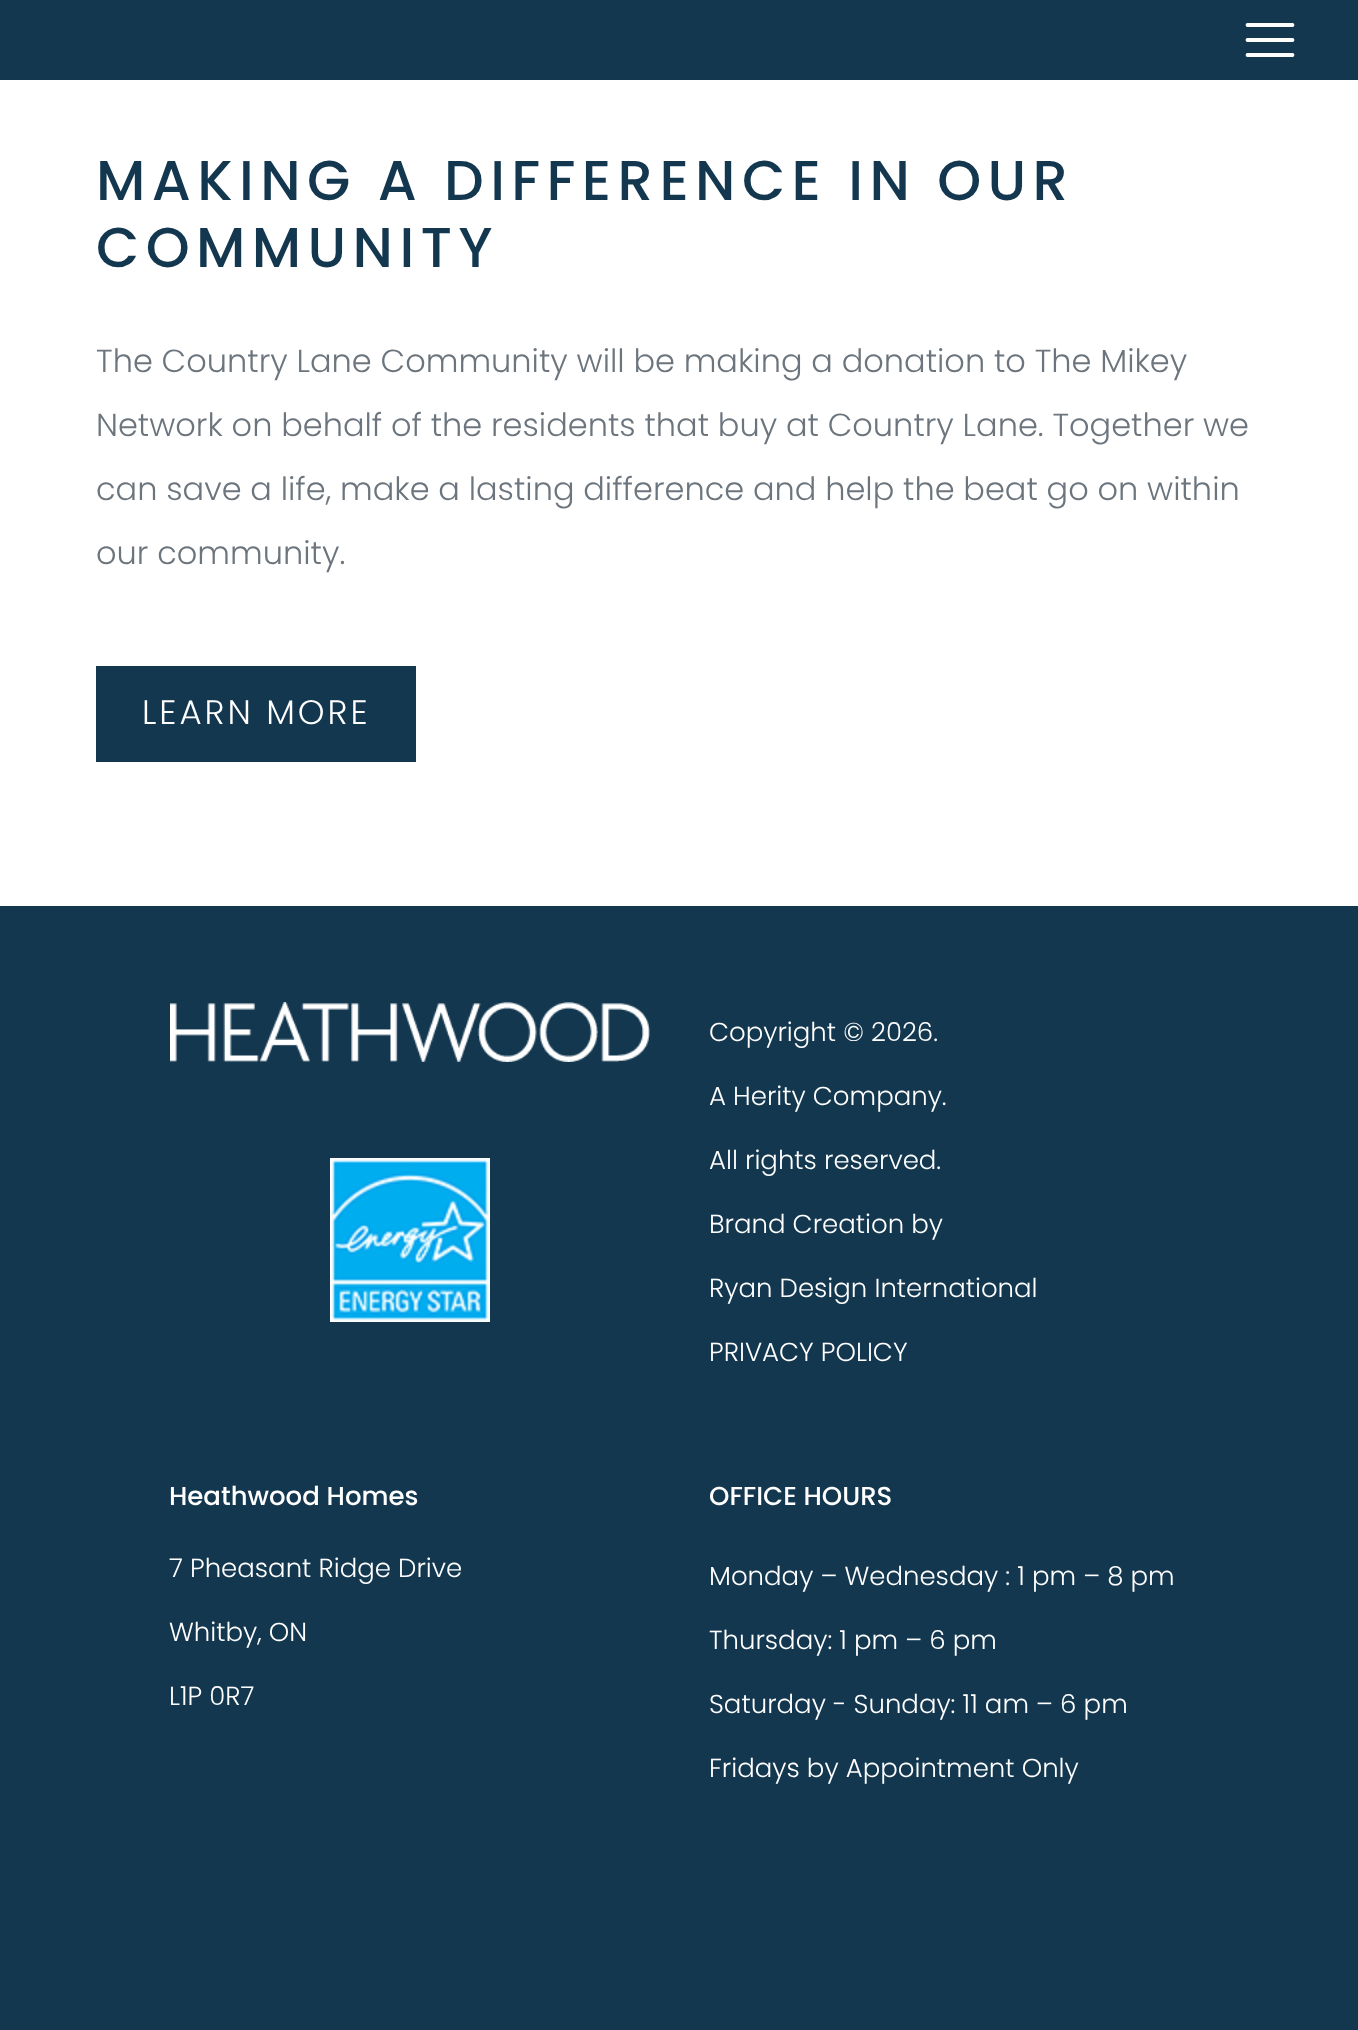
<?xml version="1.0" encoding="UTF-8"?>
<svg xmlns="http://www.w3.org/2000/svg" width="1358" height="2030">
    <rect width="100%" height="100%" fill="#FFFFFF"/>
    <rect x="0" y="0" width="1358" height="80" fill="#13374F"/>
    <path d="M 1247.5 25 H 1292.5 M 1247.5 40 H 1292.5 M 1247.5 55 H 1292.5" fill="none" stroke="#FFFFFF" stroke-width="3.8" stroke-linecap="round"/>
    <text font-family="Poppins" font-size="56" font-weight="500" letter-spacing="6.4" fill="#13374F">
        <tspan x="96" y="200">MAKING A DIFFERENCE IN OUR</tspan>
        <tspan x="96" y="267">COMMUNITY</tspan>
    </text>
    <text x="96" y="372" font-family="Poppins" font-size="32" font-weight="300" fill="#6C757D">The Country Lane Community will be making a donation to The Mikey</text>
    <text x="96" y="436" font-family="Poppins" font-size="32" font-weight="300" fill="#6C757D">Network on behalf of the residents that buy at Country Lane. Together we</text>
    <text x="96" y="500" font-family="Poppins" font-size="32" font-weight="300" fill="#6C757D">can save a life, make a lasting difference and help the beat go on within</text>
    <text x="96" y="564" font-family="Poppins" font-size="32" font-weight="300" fill="#6C757D">our community.</text>
    <rect x="96" y="666" width="320" height="96" fill="#13374F"/>
    <text x="142" y="724" font-family="Poppins" font-size="34" font-weight="300" letter-spacing="3" fill="#FFFFFF">LEARN MORE</text>
    <rect x="0" y="906" width="1358" height="1124" fill="#13374F"/>
    <image x="170" y="1002" width="480" height="60" href="img_01.png"/>
    <image x="330" y="1158" width="160" height="164" href="img_02.png"/>
    <text x="709" y="1041" font-family="Poppins" font-size="26" font-weight="300" fill="#FFFFFF">Copyright © 2026.</text>
    <text x="709" y="1105" font-family="Poppins" font-size="26" font-weight="300" fill="#FFFFFF">A Herity Company.</text>
    <text x="709" y="1169" font-family="Poppins" font-size="26" font-weight="300" fill="#FFFFFF">All rights reserved.</text>
    <text x="709" y="1233" font-family="Poppins" font-size="26" font-weight="300" fill="#FFFFFF">Brand Creation by</text>
    <text x="709" y="1297" font-family="Poppins" font-size="26" font-weight="300" fill="#FFFFFF">Ryan Design International</text>
    <text x="709" y="1361" font-family="Poppins" font-size="26" font-weight="300" fill="#FFFFFF">PRIVACY POLICY</text>
    <text x="169" y="1505" font-family="Poppins" font-size="26" font-weight="500" fill="#FFFFFF">Heathwood Homes</text>
    <text x="169" y="1577" font-family="Poppins" font-size="26" font-weight="300" fill="#FFFFFF">7 Pheasant Ridge Drive</text>
    <text x="169" y="1641" font-family="Poppins" font-size="26" font-weight="300" fill="#FFFFFF">Whitby, ON</text>
    <text x="169" y="1705" font-family="Poppins" font-size="26" font-weight="300" fill="#FFFFFF">L1P 0R7</text>
    <text x="709" y="1505" font-family="Poppins" font-size="26" font-weight="500" fill="#FFFFFF">OFFICE HOURS</text>
    <text x="709" y="1585" font-family="Poppins" font-size="26" font-weight="300" fill="#FFFFFF">Monday – Wednesday : 1 pm – 8 pm</text>
    <text x="709" y="1649" font-family="Poppins" font-size="26" font-weight="300" fill="#FFFFFF">Thursday: 1 pm – 6 pm</text>
    <text x="709" y="1713" font-family="Poppins" font-size="26" font-weight="300" fill="#FFFFFF">Saturday - Sunday: 11 am – 6 pm</text>
    <text x="709" y="1777" font-family="Poppins" font-size="26" font-weight="300" fill="#FFFFFF">Fridays by Appointment Only</text>
</svg>
